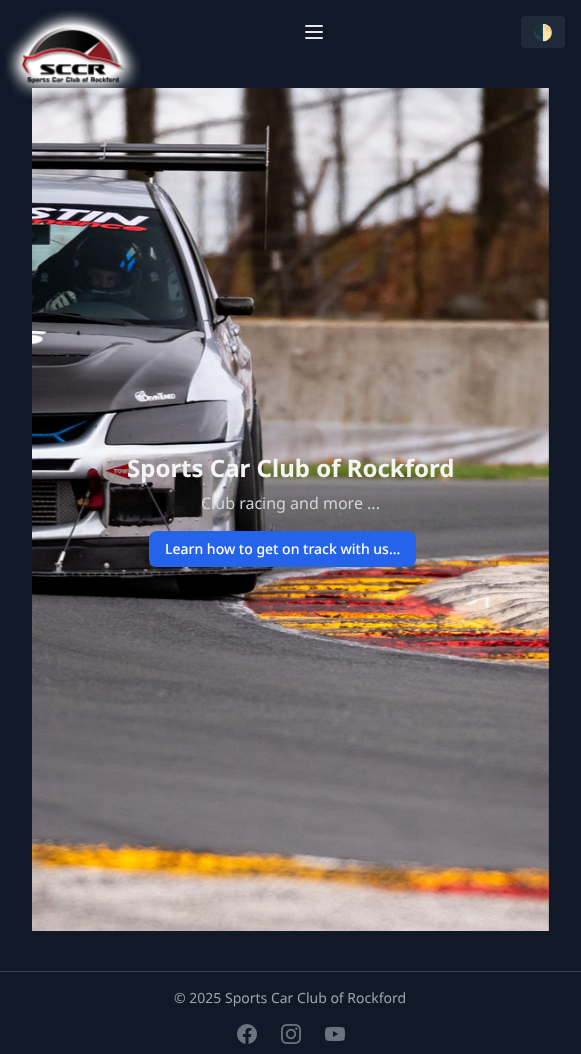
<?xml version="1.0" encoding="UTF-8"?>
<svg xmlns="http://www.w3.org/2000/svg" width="581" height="1054">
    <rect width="100%" height="100%" fill="#111827"/>
    <image x="32" y="88" width="517" height="843" href="img_02.png"/>
    <image x="5" y="10" width="136" height="89" href="img_01.png"/>
    <path d="M 306 26 H 322 M 306 32 H 322 M 306 38 H 322" fill="none" stroke="#E5E7EB" stroke-width="2" stroke-linecap="round" stroke-linejoin="round"/>
    <rect x="521" y="16" width="44" height="32" rx="4" fill="#1F2937"/>
    <text x="533" y="38" font-family="Noto Color Emoji" font-size="16" fill="#E5E7EB">🌓</text>
    <text x="127" y="477" font-family="Noto Sans" font-size="24" font-weight="700" fill="#F3F4F6">Sports Car Club of Rockford</text>
    <text x="201" y="509" font-family="Noto Sans" font-size="16" fill="#D1D5DB">Club racing and more ...</text>
    <rect x="149" y="531" width="267" height="36" rx="8" fill="#2563EB"/>
    <text x="165" y="554" font-family="Noto Sans" font-size="14" font-weight="500" fill="#FFFFFF">Learn how to get on track with us...</text>
    <rect x="0" y="971" width="581" height="1" fill="#374151"/>
    <text x="174" y="1003" font-family="Noto Sans" font-size="14" fill="#9CA3AF">© 2025 Sports Car Club of Rockford</text>
    <image x="237" y="1024" width="20" height="20" href="img_03.png"/>
    <image x="281" y="1024" width="20" height="20" href="img_04.png"/>
    <image x="325" y="1026" width="20" height="16" href="img_05.png"/>
</svg>
